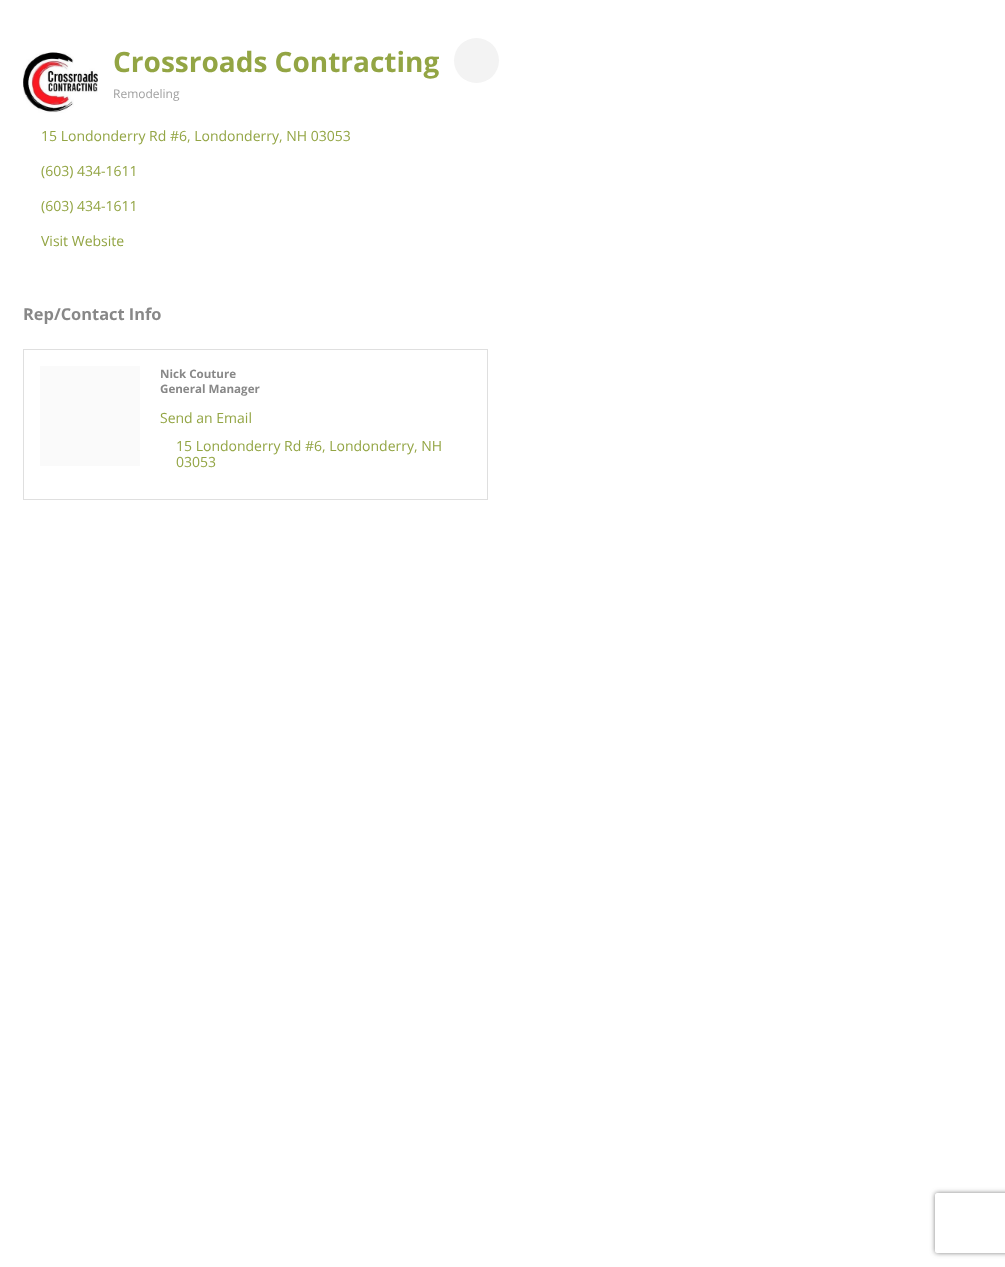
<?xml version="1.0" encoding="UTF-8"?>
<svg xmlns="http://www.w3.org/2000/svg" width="1005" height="1267">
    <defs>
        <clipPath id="clip1"><path d="M 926 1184 H 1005 V 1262 H 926 Z M 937 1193 H 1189 C 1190 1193 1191 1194 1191 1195 V 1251 C 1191 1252 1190 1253 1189 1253 H 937 C 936 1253 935 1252 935 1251 V 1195 C 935 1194 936 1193 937 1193 Z" clip-rule="evenodd"/></clipPath>
        <filter id="blur1" x="-50%" y="-200%" width="200%" height="500%"><feGaussianBlur stdDeviation="2.5"/></filter>
    </defs>
    <rect width="100%" height="100%" fill="#FFFFFF"/>
    <image x="23" y="52" width="75" height="61" href="img_01.png"/>
    <text x="113" y="72" font-family="Open Sans" font-size="28" font-weight="700" fill="#93A544">Crossroads Contracting</text>
    <circle cx="476.5" cy="60.5" r="22.5" fill="#F3F3F3"/>
    <text x="113" y="98" font-family="Open Sans" font-size="12" fill="#A0A0A0">Remodeling</text>
    <text x="41" y="141" font-family="Open Sans" font-size="14" fill="#93A544">15 Londonderry Rd #6, Londonderry, NH 03053</text>
    <text x="41" y="176" font-family="Open Sans" font-size="14" fill="#93A544">(603) 434-1611</text>
    <text x="41" y="211" font-family="Open Sans" font-size="14" fill="#93A544">(603) 434-1611</text>
    <text x="41" y="246" font-family="Open Sans" font-size="14" fill="#93A544">Visit Website</text>
    <text x="23" y="320" font-family="Open Sans" font-size="16.4" font-weight="700" fill="#888888">Rep/Contact Info</text>
    <rect x="23.5" y="349.5" width="464" height="150" fill="none" stroke="#DFDFDF"/>
    <rect x="40" y="366" width="100" height="100" fill="#FAFAFA"/>
    <text font-family="Open Sans" font-size="11.6" font-weight="700" fill="#888888">
        <tspan x="160" y="378">Nick Couture</tspan>
        <tspan x="160" y="393">General Manager</tspan>
    </text>
    <text x="160" y="423" font-family="Open Sans" font-size="14" fill="#93A544">Send an Email</text>
    <text font-family="Open Sans" font-size="14" fill="#93A544">
        <tspan x="176" y="451">15 Londonderry Rd #6, Londonderry, NH</tspan>
        <tspan x="176" y="467">03053</tspan>
    </text>
    <g clip-path="url(#clip1)">
        <rect x="935" y="1193" width="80" height="60" rx="2" fill="#808080" filter="url(#blur1)"/>
    </g>
</svg>
